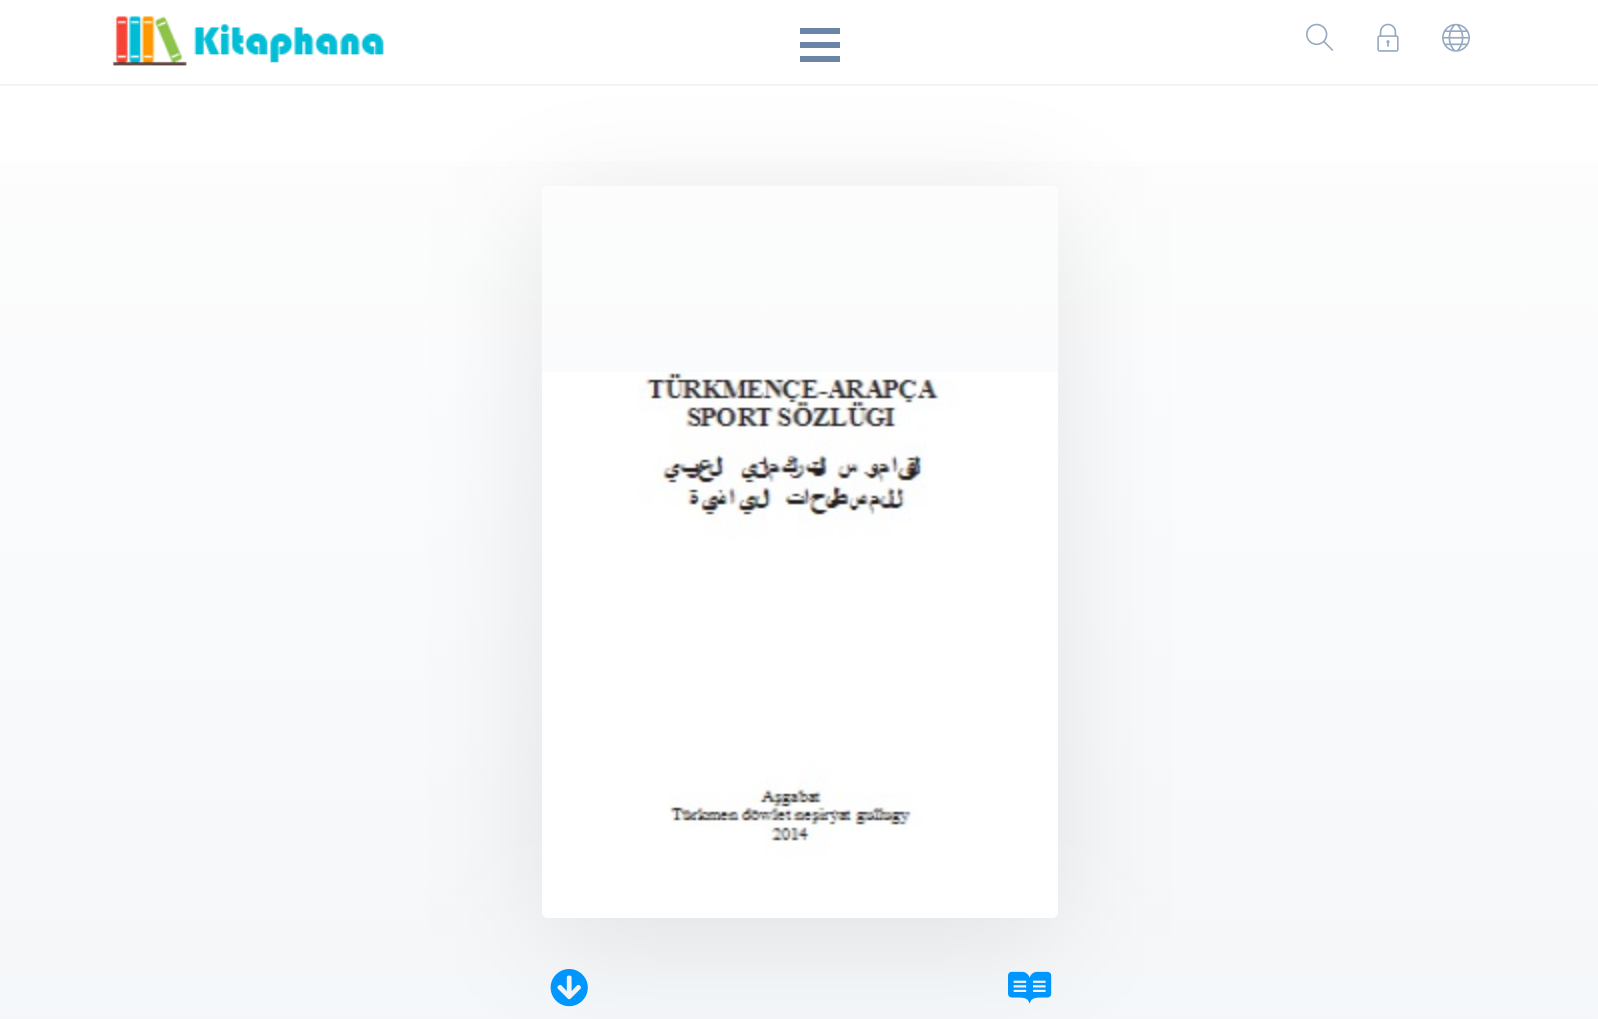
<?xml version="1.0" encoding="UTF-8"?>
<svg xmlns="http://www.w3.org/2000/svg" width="1598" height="1019">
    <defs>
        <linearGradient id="g1" gradientUnits="userSpaceOnUse" x1="799" y1="0" x2="799" y2="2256"><stop offset="0" stop-color="#FEFEFE"/><stop offset="1" stop-color="#E9EEF3"/></linearGradient>
        <clipPath id="clip1"><path d="M 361 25 H 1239 V 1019 H 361 Z M 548 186 H 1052 C 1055.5 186 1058 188.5 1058 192 V 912 C 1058 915.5 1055.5 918 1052 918 H 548 C 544.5 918 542 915.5 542 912 V 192 C 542 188.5 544.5 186 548 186 Z" clip-rule="evenodd"/></clipPath>
        <filter id="blur1" x="-50%" y="-200%" width="200%" height="500%"><feGaussianBlur stdDeviation="60"/></filter>
    </defs>
    <rect width="100%" height="100%" fill="#FFFFFF"/>
    <rect x="0" y="161" width="1598" height="858" fill="url(#g1)"/>
    <g clip-path="url(#clip1)">
        <rect x="542" y="206" width="516" height="732" rx="6" fill="#1D1D1F" fill-opacity="0.09" filter="url(#blur1)"/>
    </g>
    <rect x="0" y="84" width="1598" height="2" fill="#F3F3F3"/>
    <image x="112" y="16" width="272" height="50" href="img_01.png"/>
    <rect x="800" y="42" width="40" height="6" fill="#6A85A6"/>
    <rect x="800" y="28" width="40" height="6" fill="#6A85A6"/>
    <rect x="800" y="56" width="40" height="6" fill="#6A85A6"/>
    <image x="1306" y="23" width="28" height="28" href="img_02.png"/>
    <image x="1377" y="23" width="22" height="29" href="img_03.png"/>
    <image x="1442" y="23" width="28" height="29" href="img_04.png"/>
    <image x="542" y="372" width="516" height="546" href="img_05.png"/>
    <image x="550" y="969" width="38" height="38" href="img_06.png"/>
    <image x="1008" y="971" width="44" height="33" href="img_07.png"/>
</svg>
